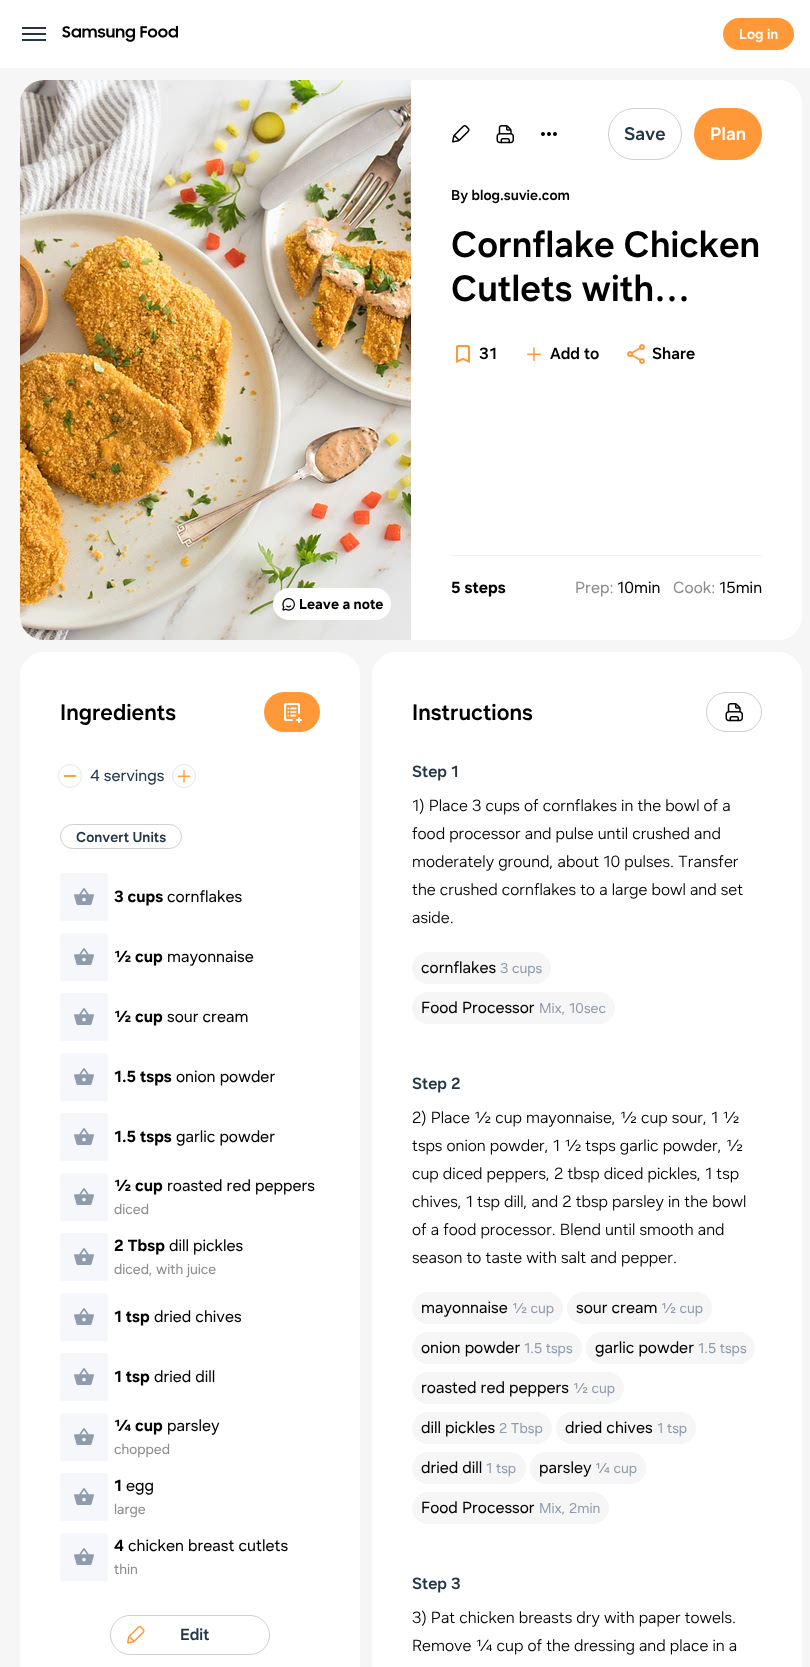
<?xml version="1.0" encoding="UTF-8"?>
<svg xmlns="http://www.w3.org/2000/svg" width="810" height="1667">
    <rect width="100%" height="100%" fill="#F6F6F6"/>
    <rect x="0" y="0" width="810" height="68" fill="#FFFFFF"/>
    <rect x="22" y="27" width="24" height="2" fill="#233748"/>
    <rect x="22" y="33" width="24" height="2" fill="#233748"/>
    <rect x="22" y="39" width="24" height="2" fill="#233748"/>
    <image x="62" y="26" width="116" height="16" href="img_01.png"/>
    <rect x="723" y="18" width="71" height="32" rx="16" fill="#FF9838"/>
    <text x="739" y="39" font-family="'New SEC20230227'" font-size="14" font-weight="600" fill="#FFFFFF">Log in</text>
    <path d="M 411 80 H 778 C 791.5 80 802 90.5 802 104 V 616 C 802 629.5 791.5 640 778 640 H 411 Z" fill="#FFFFFF"/>
    <image x="452" y="125" width="18" height="18" href="img_02.png"/>
    <image x="496" y="125" width="18" height="19" href="img_03.png"/>
    <image x="541" y="132" width="16" height="4" href="img_04.png"/>
    <rect x="608.5" y="108.5" width="73" height="51" rx="25.5" fill="none" stroke="#CFCFCF"/>
    <text x="624" y="140" font-family="'New SEC20230227'" font-size="18" font-weight="600" fill="#233748">Save</text>
    <rect x="694" y="108" width="68" height="52" rx="26" fill="#FF9838"/>
    <text x="710" y="140" font-family="'New SEC20230227'" font-size="18" font-weight="600" fill="#FFFFFF">Plan</text>
    <text x="451" y="200" font-family="'New SEC20230227'" font-size="14" font-weight="600" fill="#010101">By blog.suvie.com</text>
    <text font-family="'New SEC20230227'" font-size="36" font-weight="600" fill="#010101">
        <tspan x="451" y="257">Cornflake Chicken</tspan>
        <tspan x="451" y="301">Cutlets with…</tspan>
    </text>
    <image x="456" y="345" width="14" height="18" href="img_05.png"/>
    <text x="479" y="359" font-family="'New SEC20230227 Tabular'" font-size="16" font-weight="600" fill="#010101">31</text>
    <image x="527" y="347" width="14" height="15" href="img_06.png"/>
    <text x="550" y="359" font-family="'New SEC20230227'" font-size="16" font-weight="600" fill="#010101">Add to</text>
    <image x="627" y="344" width="18" height="20" href="img_07.png"/>
    <text x="652" y="359" font-family="'New SEC20230227'" font-size="16" font-weight="600" fill="#010101">Share</text>
    <rect x="451" y="555" width="311" height="1" fill="#F2F2F2"/>
    <text x="451" y="593" font-family="'New SEC20230227'" font-size="16" font-weight="700" fill="#010101">5 steps</text>
    <text x="575" y="593" font-family="'New SEC20230227'" font-size="16" fill="#8C8C8C">Prep:</text>
    <text x="617" y="593" font-family="'New SEC20230227'" font-size="16" fill="#010101">10min</text>
    <text x="673" y="593" font-family="'New SEC20230227'" font-size="16" fill="#8C8C8C">Cook:</text>
    <text x="719" y="593" font-family="'New SEC20230227'" font-size="16" fill="#010101">15min</text>
    <image x="20" y="80" width="391" height="560" href="img_08.png"/>
    <rect x="273" y="588" width="118" height="32" rx="16" fill="#FFFFFF"/>
    <image x="282" y="598" width="13" height="13" href="img_09.png"/>
    <text x="299" y="609" font-family="'New SEC20230227'" font-size="14" font-weight="700" fill="#010101">Leave a note</text>
    <path d="M 44 652 H 336 C 349.5 652 360 662.5 360 676 V 1667 H 20 V 676 C 20 662.5 30.5 652 44 652 Z" fill="#FFFFFF"/>
    <text x="60" y="720" font-family="'New SEC20230227'" font-size="22" font-weight="600" fill="#010101">Ingredients</text>
    <rect x="264" y="692" width="56" height="40" rx="20" fill="#FF9838"/>
    <image x="284" y="703" width="18" height="20" href="img_10.png"/>
    <circle cx="70" cy="776" r="11.5" fill="none" stroke="#E4E6EA"/>
    <image x="63" y="775" width="14" height="2" href="img_11.png"/>
    <text x="90" y="781" font-family="'New SEC20230227'" font-size="16" fill="#233748">4 servings</text>
    <circle cx="184" cy="776" r="11.5" fill="none" stroke="#E4E6EA"/>
    <image x="177" y="769" width="14" height="14" href="img_12.png"/>
    <rect x="60.5" y="824.5" width="121" height="24" rx="12" fill="none" stroke="#CFCFCF"/>
    <text x="76" y="842" font-family="'New SEC20230227'" font-size="14" font-weight="600" fill="#233748">Convert Units</text>
    <rect x="60" y="873" width="48" height="48" rx="3" fill="#F6F7FA"/>
    <image x="74" y="888" width="20" height="17" href="img_13.png"/>
    <text x="114" y="902" font-family="'New SEC20230227'" font-size="16" font-weight="700" fill="#010101">3 cups</text>
    <text x="167" y="902" font-family="'New SEC20230227'" font-size="16" fill="#010101">cornflakes</text>
    <rect x="60" y="933" width="48" height="48" rx="3" fill="#F6F7FA"/>
    <image x="74" y="948" width="20" height="17" href="img_13.png"/>
    <text x="114" y="962" font-family="'New SEC20230227'" font-size="16" font-weight="700" fill="#010101">½ cup</text>
    <text x="167" y="962" font-family="'New SEC20230227'" font-size="16" fill="#010101">mayonnaise</text>
    <rect x="60" y="993" width="48" height="48" rx="3" fill="#F6F7FA"/>
    <image x="74" y="1008" width="20" height="17" href="img_13.png"/>
    <text x="114" y="1022" font-family="'New SEC20230227'" font-size="16" font-weight="700" fill="#010101">½ cup</text>
    <text x="167" y="1022" font-family="'New SEC20230227'" font-size="16" fill="#010101">sour cream</text>
    <rect x="60" y="1053" width="48" height="48" rx="3" fill="#F6F7FA"/>
    <image x="74" y="1068" width="20" height="17" href="img_13.png"/>
    <text x="114" y="1082" font-family="'New SEC20230227'" font-size="16" font-weight="700" fill="#010101">1.5 tsps</text>
    <text x="176" y="1082" font-family="'New SEC20230227'" font-size="16" fill="#010101">onion powder</text>
    <rect x="60" y="1113" width="48" height="48" rx="3" fill="#F6F7FA"/>
    <image x="74" y="1128" width="20" height="17" href="img_13.png"/>
    <text x="114" y="1142" font-family="'New SEC20230227'" font-size="16" font-weight="700" fill="#010101">1.5 tsps</text>
    <text x="176" y="1142" font-family="'New SEC20230227'" font-size="16" fill="#010101">garlic powder</text>
    <rect x="60" y="1173" width="48" height="48" rx="3" fill="#F6F7FA"/>
    <image x="74" y="1188" width="20" height="17" href="img_13.png"/>
    <text x="114" y="1191" font-family="'New SEC20230227'" font-size="16" font-weight="700" fill="#010101">½ cup</text>
    <text x="167" y="1191" font-family="'New SEC20230227'" font-size="16" fill="#010101">roasted red peppers</text>
    <text x="114" y="1214" font-family="'New SEC20230227'" font-size="14" fill="#8C8C8C">diced</text>
    <rect x="60" y="1233" width="48" height="48" rx="3" fill="#F6F7FA"/>
    <image x="74" y="1248" width="20" height="17" href="img_13.png"/>
    <text x="114" y="1251" font-family="'New SEC20230227'" font-size="16" font-weight="700" fill="#010101">2 Tbsp</text>
    <text x="169" y="1251" font-family="'New SEC20230227'" font-size="16" fill="#010101">dill pickles</text>
    <text x="114" y="1274" font-family="'New SEC20230227'" font-size="14" fill="#8C8C8C">diced, with juice</text>
    <rect x="60" y="1293" width="48" height="48" rx="3" fill="#F6F7FA"/>
    <image x="74" y="1308" width="20" height="17" href="img_13.png"/>
    <text x="114" y="1322" font-family="'New SEC20230227'" font-size="16" font-weight="700" fill="#010101">1 tsp</text>
    <text x="154" y="1322" font-family="'New SEC20230227'" font-size="16" fill="#010101">dried chives</text>
    <rect x="60" y="1353" width="48" height="48" rx="3" fill="#F6F7FA"/>
    <image x="74" y="1368" width="20" height="17" href="img_13.png"/>
    <text x="114" y="1382" font-family="'New SEC20230227'" font-size="16" font-weight="700" fill="#010101">1 tsp</text>
    <text x="154" y="1382" font-family="'New SEC20230227'" font-size="16" fill="#010101">dried dill</text>
    <rect x="60" y="1413" width="48" height="48" rx="3" fill="#F6F7FA"/>
    <image x="74" y="1428" width="20" height="17" href="img_13.png"/>
    <text x="114" y="1431" font-family="'New SEC20230227'" font-size="16" font-weight="700" fill="#010101">¼ cup</text>
    <text x="167" y="1431" font-family="'New SEC20230227'" font-size="16" fill="#010101">parsley</text>
    <text x="114" y="1454" font-family="'New SEC20230227'" font-size="14" fill="#8C8C8C">chopped</text>
    <rect x="60" y="1473" width="48" height="48" rx="3" fill="#F6F7FA"/>
    <image x="74" y="1488" width="20" height="17" href="img_13.png"/>
    <text x="114" y="1491" font-family="'New SEC20230227'" font-size="16" font-weight="700" fill="#010101">1</text>
    <text x="126" y="1491" font-family="'New SEC20230227'" font-size="16" fill="#010101">egg</text>
    <text x="114" y="1514" font-family="'New SEC20230227'" font-size="14" fill="#8C8C8C">large</text>
    <rect x="60" y="1533" width="48" height="48" rx="3" fill="#F6F7FA"/>
    <image x="74" y="1548" width="20" height="17" href="img_13.png"/>
    <text x="114" y="1551" font-family="'New SEC20230227'" font-size="16" font-weight="700" fill="#010101">4</text>
    <text x="128" y="1551" font-family="'New SEC20230227'" font-size="16" fill="#010101">chicken breast cutlets</text>
    <text x="114" y="1574" font-family="'New SEC20230227'" font-size="14" fill="#8C8C8C">thin</text>
    <rect x="110.5" y="1615.5" width="159" height="39" rx="19.5" fill="none" stroke="#CFCFCF"/>
    <image x="127" y="1626" width="18" height="18" href="img_14.png"/>
    <text x="180" y="1640" font-family="'New SEC20230227'" font-size="16" font-weight="600" fill="#233748">Edit</text>
    <path d="M 396 652 H 778 C 791.5 652 802 662.5 802 676 V 1667 H 372 V 676 C 372 662.5 382.5 652 396 652 Z" fill="#FFFFFF"/>
    <text x="412" y="720" font-family="'New SEC20230227'" font-size="22" font-weight="600" fill="#010101">Instructions</text>
    <rect x="706.5" y="692.5" width="55" height="39" rx="19.5" fill="none" stroke="#CFCFCF"/>
    <image x="725" y="703" width="18" height="19" href="img_03.png"/>
    <text x="412" y="777" font-family="'New SEC20230227'" font-size="16" font-weight="600" fill="#233748">Step 1</text>
    <text font-family="'New SEC20230227'" font-size="16" font-weight="300" fill="#010101">
        <tspan x="412" y="811">1) Place 3 cups of cornflakes in the bowl of a</tspan>
        <tspan x="412" y="839">food processor and pulse until crushed and</tspan>
        <tspan x="412" y="867">moderately ground, about 10 pulses. Transfer</tspan>
        <tspan x="412" y="895">the crushed cornflakes to a large bowl and set</tspan>
        <tspan x="412" y="923">aside.</tspan>
    </text>
    <rect x="412" y="952" width="139" height="32" rx="16" fill="#F6F6F6"/>
    <text x="421" y="973" font-family="'New SEC20230227'" font-size="16" fill="#010101">cornflakes</text>
    <text x="500" y="973" font-family="'New SEC20230227'" font-size="14" fill="#909BAB">3 cups</text>
    <rect x="412" y="992" width="203" height="32" rx="16" fill="#F6F6F6"/>
    <text x="421" y="1013" font-family="'New SEC20230227'" font-size="16" fill="#010101">Food Processor</text>
    <text x="539" y="1013" font-family="'New SEC20230227'" font-size="14" fill="#909BAB">Mix,</text>
    <text x="569" y="1013" font-family="'New SEC20230227'" font-size="14" fill="#909BAB">10sec</text>
    <text x="412" y="1089" font-family="'New SEC20230227'" font-size="16" font-weight="600" fill="#233748">Step 2</text>
    <text font-family="'New SEC20230227'" font-size="16" font-weight="300" fill="#010101">
        <tspan x="412" y="1123">2) Place ½ cup mayonnaise, ½ cup sour, 1 ½</tspan>
        <tspan x="412" y="1151">tsps onion powder, 1 ½ tsps garlic powder, ½</tspan>
        <tspan x="412" y="1179">cup diced peppers, 2 tbsp diced pickles, 1 tsp</tspan>
        <tspan x="412" y="1207">chives, 1 tsp dill, and 2 tbsp parsley in the bowl</tspan>
        <tspan x="412" y="1235">of a food processor. Blend until smooth and</tspan>
        <tspan x="412" y="1263">season to taste with salt and pepper.</tspan>
    </text>
    <rect x="412" y="1292" width="151" height="32" rx="16" fill="#F6F6F6"/>
    <text x="421" y="1313" font-family="'New SEC20230227'" font-size="16" fill="#010101">mayonnaise</text>
    <text x="512" y="1313" font-family="'New SEC20230227'" font-size="14" fill="#909BAB">½ cup</text>
    <rect x="567" y="1292" width="145" height="32" rx="16" fill="#F6F6F6"/>
    <text x="576" y="1313" font-family="'New SEC20230227'" font-size="16" fill="#010101">sour cream</text>
    <text x="661" y="1313" font-family="'New SEC20230227'" font-size="14" fill="#909BAB">½ cup</text>
    <rect x="412" y="1332" width="170" height="32" rx="16" fill="#F6F6F6"/>
    <text x="421" y="1353" font-family="'New SEC20230227'" font-size="16" fill="#010101">onion powder</text>
    <text x="524" y="1353" font-family="'New SEC20230227'" font-size="14" fill="#909BAB">1.5 tsps</text>
    <rect x="586" y="1332" width="169" height="32" rx="16" fill="#F6F6F6"/>
    <text x="595" y="1353" font-family="'New SEC20230227'" font-size="16" fill="#010101">garlic powder</text>
    <text x="698" y="1353" font-family="'New SEC20230227'" font-size="14" fill="#909BAB">1.5 tsps</text>
    <rect x="412" y="1372" width="212" height="32" rx="16" fill="#F6F6F6"/>
    <text x="421" y="1393" font-family="'New SEC20230227'" font-size="16" fill="#010101">roasted red peppers</text>
    <text x="573" y="1393" font-family="'New SEC20230227'" font-size="14" fill="#909BAB">½ cup</text>
    <rect x="412" y="1412" width="140" height="32" rx="16" fill="#F6F6F6"/>
    <text x="421" y="1433" font-family="'New SEC20230227'" font-size="16" fill="#010101">dill pickles</text>
    <text x="499" y="1433" font-family="'New SEC20230227'" font-size="14" fill="#909BAB">2 Tbsp</text>
    <rect x="556" y="1412" width="140" height="32" rx="16" fill="#F6F6F6"/>
    <text x="565" y="1433" font-family="'New SEC20230227'" font-size="16" fill="#010101">dried chives</text>
    <text x="657" y="1433" font-family="'New SEC20230227'" font-size="14" fill="#909BAB">1 tsp</text>
    <rect x="412" y="1452" width="114" height="32" rx="16" fill="#F6F6F6"/>
    <text x="421" y="1473" font-family="'New SEC20230227'" font-size="16" fill="#010101">dried dill</text>
    <text x="486" y="1473" font-family="'New SEC20230227'" font-size="14" fill="#909BAB">1 tsp</text>
    <rect x="530" y="1452" width="116" height="32" rx="16" fill="#F6F6F6"/>
    <text x="539" y="1473" font-family="'New SEC20230227'" font-size="16" fill="#010101">parsley</text>
    <text x="595" y="1473" font-family="'New SEC20230227'" font-size="14" fill="#909BAB">¼ cup</text>
    <rect x="412" y="1492" width="197" height="32" rx="16" fill="#F6F6F6"/>
    <text x="421" y="1513" font-family="'New SEC20230227'" font-size="16" fill="#010101">Food Processor</text>
    <text x="539" y="1513" font-family="'New SEC20230227'" font-size="14" fill="#909BAB">Mix,</text>
    <text x="569" y="1513" font-family="'New SEC20230227'" font-size="14" fill="#909BAB">2min</text>
    <text x="412" y="1589" font-family="'New SEC20230227'" font-size="16" font-weight="600" fill="#233748">Step 3</text>
    <text font-family="'New SEC20230227'" font-size="16" font-weight="300" fill="#010101">
        <tspan x="412" y="1623">3) Pat chicken breasts dry with paper towels.</tspan>
        <tspan x="412" y="1651">Remove ¼ cup of the dressing and place in a</tspan>
    </text>
</svg>
